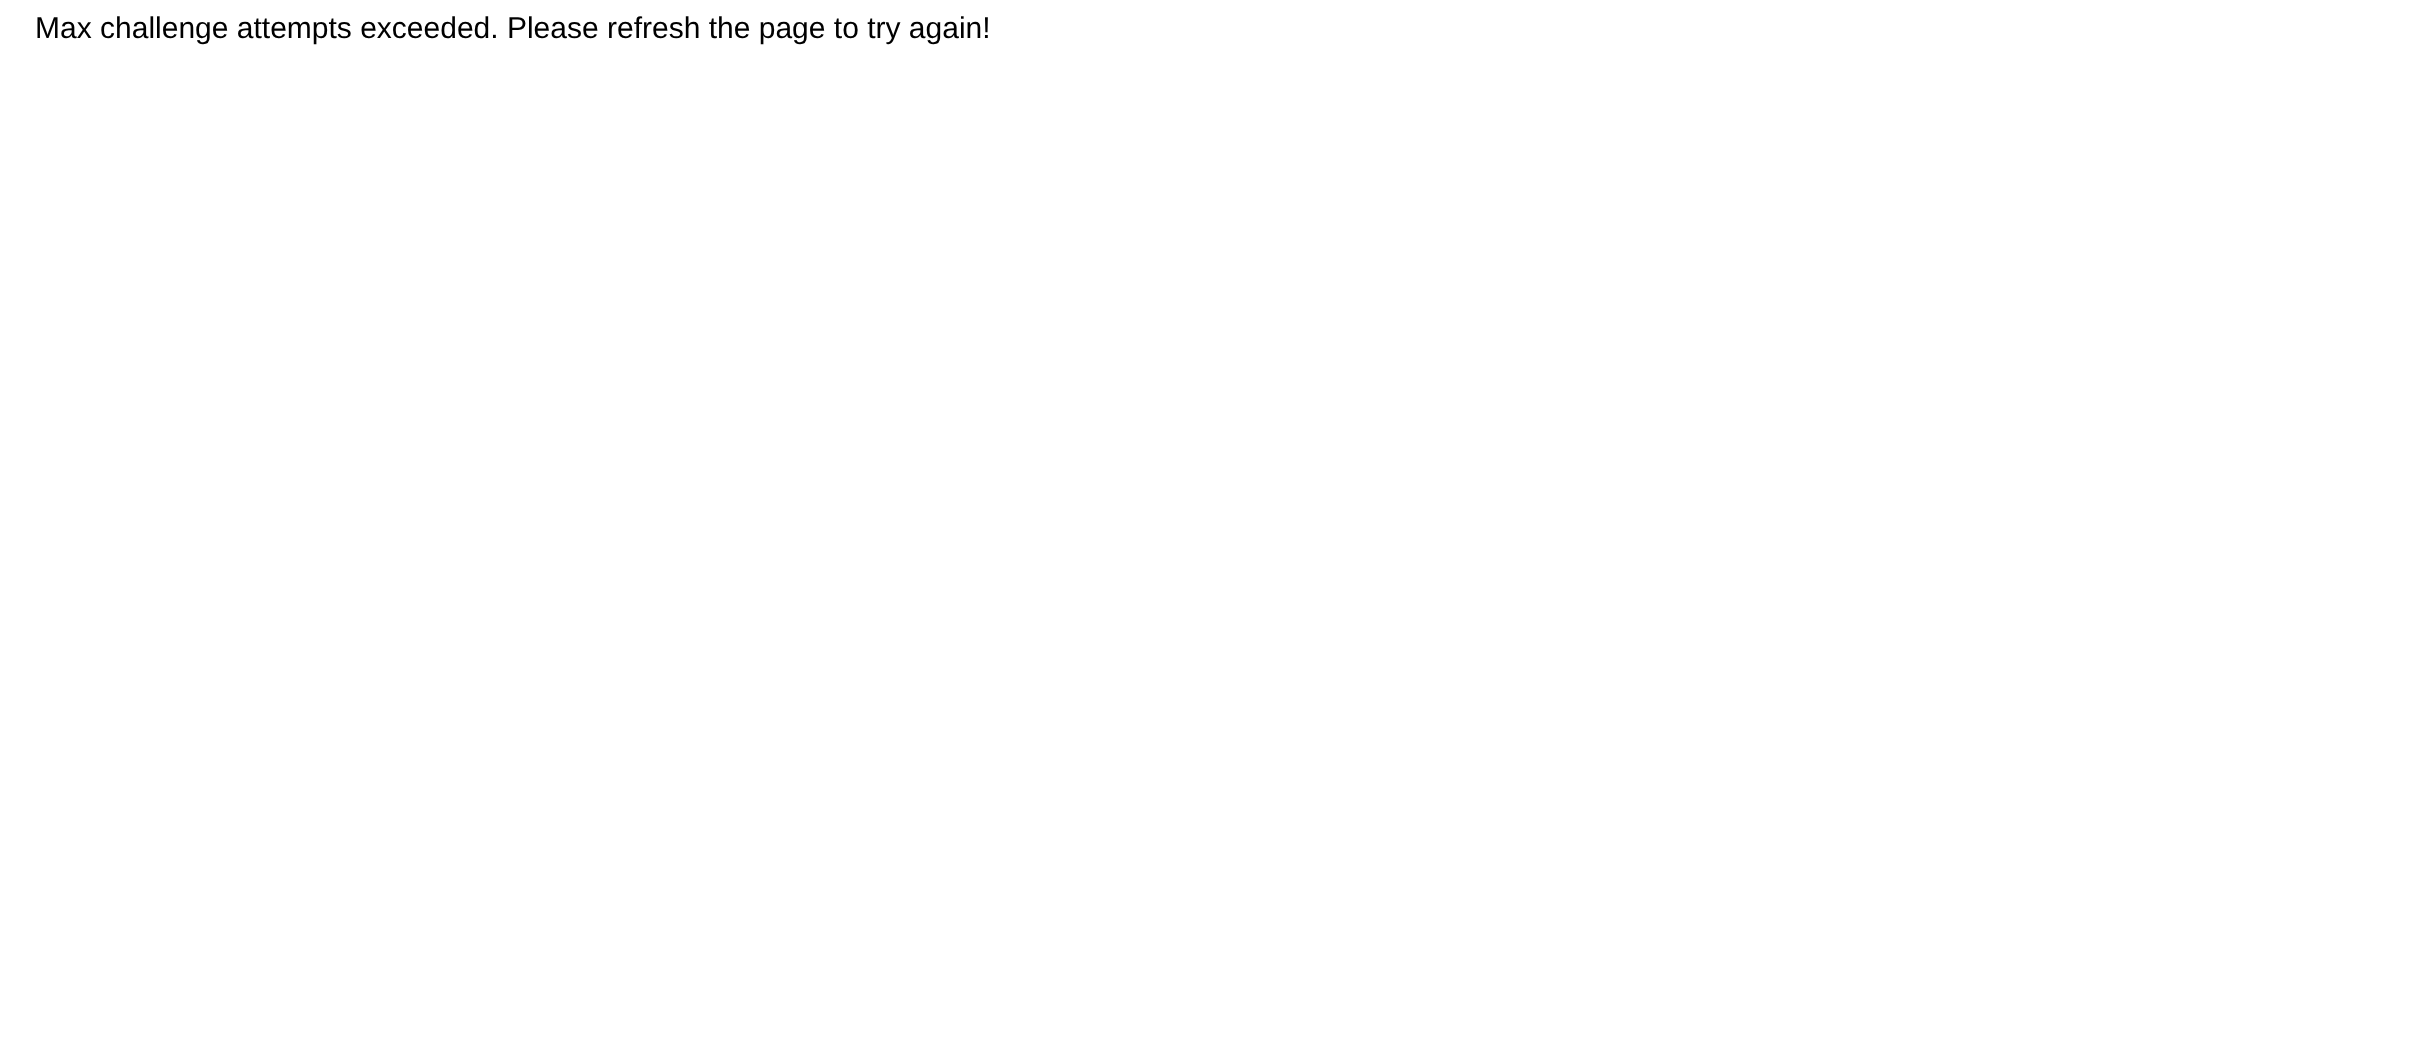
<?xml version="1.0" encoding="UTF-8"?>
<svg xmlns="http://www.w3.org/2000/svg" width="2423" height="1037">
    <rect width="100%" height="100%" fill="#FFFFFF"/>
    <text x="35" y="38" font-family="Liberation Sans" font-size="30" fill="#000000">Max challenge attempts exceeded. Please refresh the page to try again!</text>
</svg>
